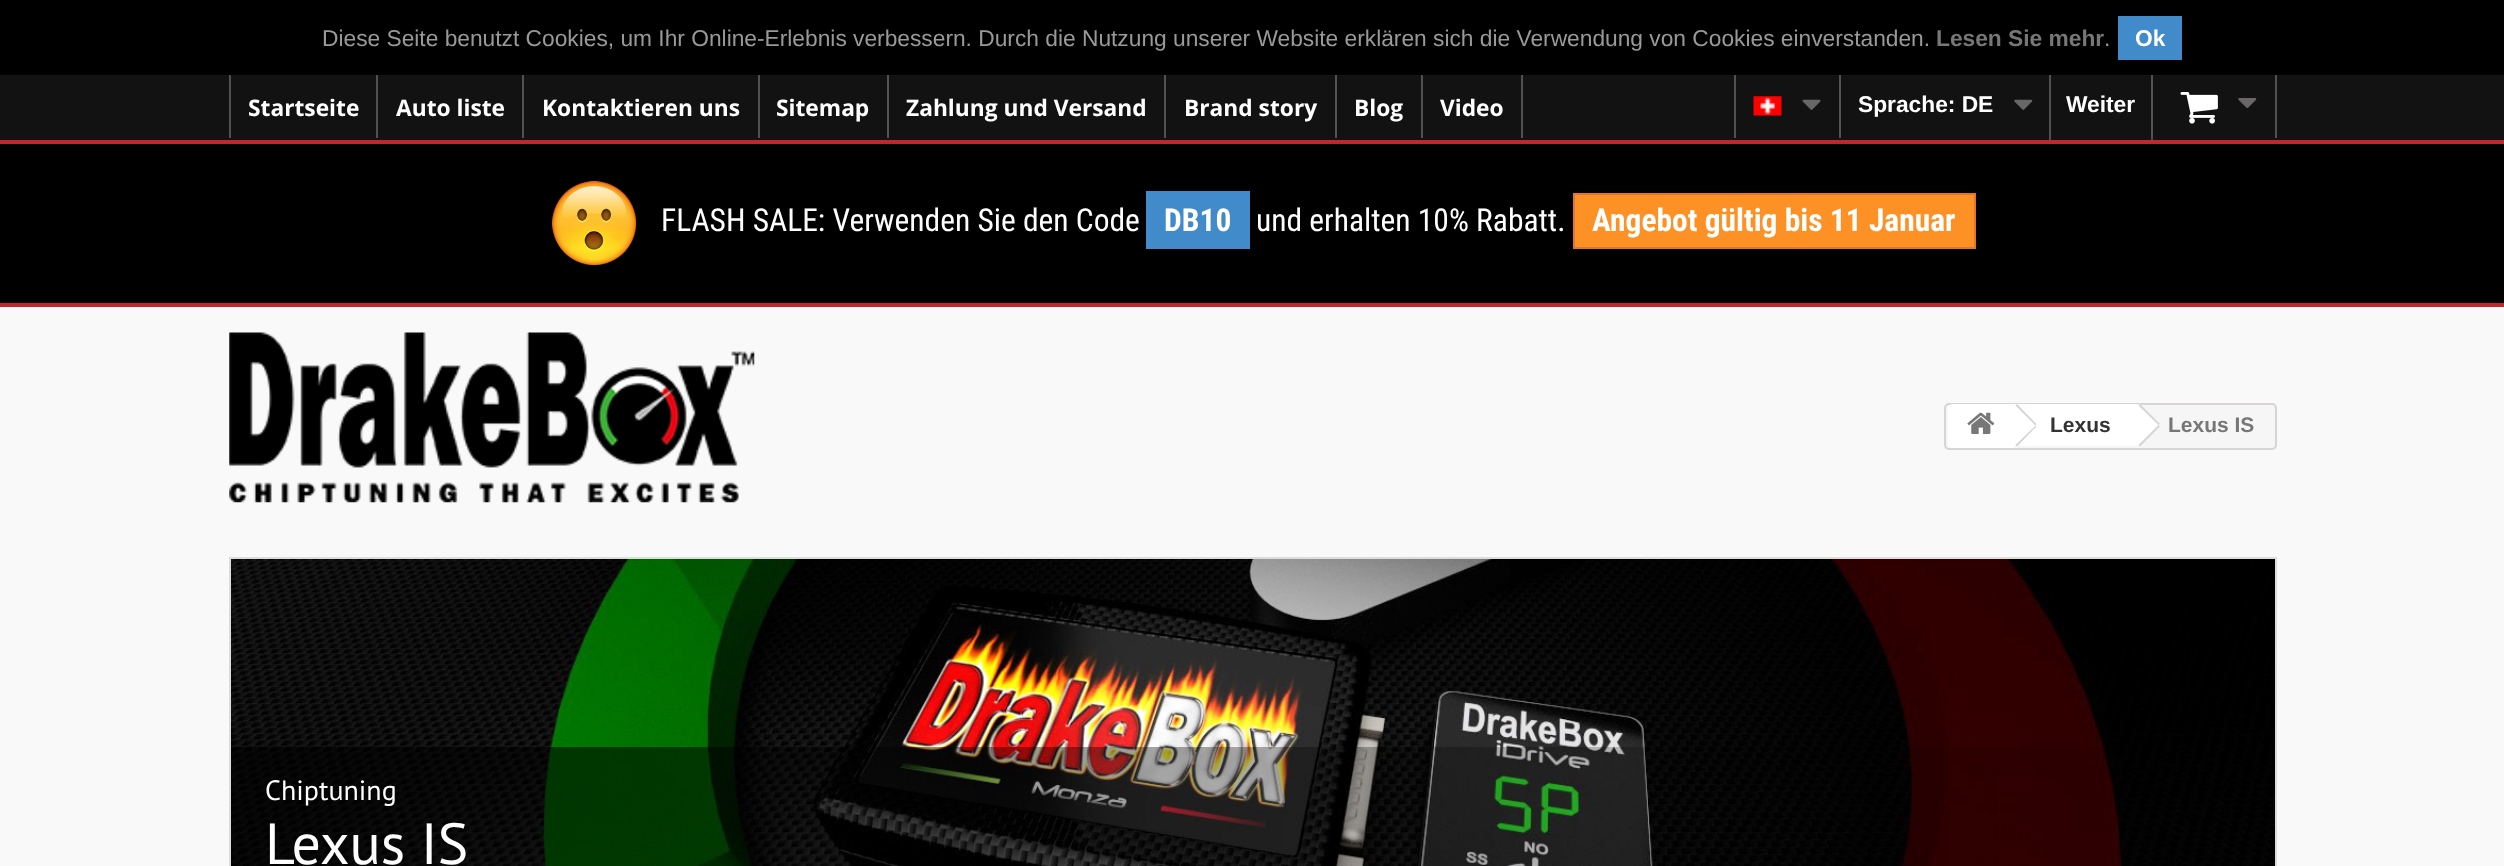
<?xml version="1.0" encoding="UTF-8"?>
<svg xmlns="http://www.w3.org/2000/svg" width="2504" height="866">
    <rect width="100%" height="100%" fill="#FAF9F9"/>
    <rect x="0" y="75" width="2504" height="65" fill="#121212"/>
    <rect x="0" y="0" width="2504" height="75" fill="#000000"/>
    <text x="322" y="46" font-family="Liberation Sans" font-size="22.75" fill="#999999">Diese Seite benutzt Cookies, um Ihr Online-Erlebnis verbessern. Durch die Nutzung unserer Website erklären sich die Verwendung von Cookies einverstanden.</text>
    <text x="1936" y="46" font-family="Liberation Sans" font-size="22.75" font-weight="700" fill="#777777">Lesen Sie mehr</text>
    <text x="2104" y="46" font-family="Liberation Sans" font-size="22.75" fill="#999999">.</text>
    <rect x="2118" y="16" width="64" height="44" fill="#428BCA"/>
    <text x="2135" y="46" font-family="Liberation Sans" font-size="22.75" font-weight="700" fill="#FFFFFF">Ok</text>
    <rect x="376" y="75" width="2" height="63" fill="#515151"/>
    <rect x="229" y="75" width="2" height="63" fill="#515151"/>
    <text x="248" y="116" font-family="Open Sans" font-size="22.75" font-weight="700" fill="#FFFFFF">Startseite</text>
    <rect x="522" y="75" width="2" height="63" fill="#515151"/>
    <text x="396" y="116" font-family="Open Sans" font-size="22.75" font-weight="700" fill="#FFFFFF">Auto liste</text>
    <rect x="758" y="75" width="2" height="63" fill="#515151"/>
    <text x="542" y="116" font-family="Open Sans" font-size="22.75" font-weight="700" fill="#FFFFFF">Kontaktieren uns</text>
    <rect x="887" y="75" width="2" height="63" fill="#515151"/>
    <text x="776" y="116" font-family="Open Sans" font-size="22.75" font-weight="700" fill="#FFFFFF">Sitemap</text>
    <rect x="1164" y="75" width="2" height="63" fill="#515151"/>
    <text x="906" y="116" font-family="Open Sans" font-size="22.75" font-weight="700" fill="#FFFFFF">Zahlung und Versand</text>
    <rect x="1335" y="75" width="2" height="63" fill="#515151"/>
    <text x="1184" y="116" font-family="Open Sans" font-size="22.75" font-weight="700" fill="#FFFFFF">Brand story</text>
    <rect x="1421" y="75" width="2" height="63" fill="#515151"/>
    <text x="1354" y="116" font-family="Open Sans" font-size="22.75" font-weight="700" fill="#FFFFFF">Blog</text>
    <rect x="1521" y="75" width="2" height="63" fill="#515151"/>
    <text x="1440" y="116" font-family="Open Sans" font-size="22.75" font-weight="700" fill="#FFFFFF">Video</text>
    <rect x="1734" y="75" width="2" height="63" fill="#515151"/>
    <image x="1753" y="96" width="29" height="20" href="img_01.png"/>
    <image x="1802" y="99" width="19" height="11" href="img_02.png"/>
    <rect x="1839" y="75" width="2" height="63" fill="#515151"/>
    <text x="1858" y="112" font-family="Liberation Sans" font-size="22.75" font-weight="700" fill="#FFFFFF">Sprache: DE</text>
    <image x="2014" y="99" width="19" height="11" href="img_03.png"/>
    <rect x="2151" y="75" width="2" height="65" fill="#515151"/>
    <rect x="2049" y="75" width="2" height="65" fill="#515151"/>
    <text x="2066" y="112" font-family="Liberation Sans" font-size="22.75" font-weight="700" fill="#FFFFFF">Weiter</text>
    <rect x="2275" y="75" width="2" height="63" fill="#515151"/>
    <image x="2180" y="92" width="38" height="32" href="img_04.png"/>
    <image x="2238" y="98" width="19" height="11" href="img_05.png"/>
    <rect x="0" y="144" width="2504" height="159" fill="#000000"/>
    <rect x="0" y="140" width="2504" height="4" fill="#C1272D"/>
    <rect x="0" y="303" width="2504" height="4" fill="#C1272D"/>
    <image x="552" y="181" width="85" height="85" href="img_06.png"/>
    <text x="661" y="231" font-family="Roboto Condensed" font-size="31.5" fill="#FFFFFF">FLASH SALE: Verwenden Sie den Code</text>
    <rect x="1146" y="191" width="104" height="58" fill="#428BCA"/>
    <text x="1164" y="231" font-family="Roboto Condensed" font-size="31.5" font-weight="700" fill="#FFFFFF">DB10</text>
    <text x="1256" y="231" font-family="Roboto Condensed" font-size="31.5" fill="#FFFFFF">und erhalten 10% Rabatt.</text>
    <rect x="1574" y="194" width="401" height="54" fill="#FE9126" stroke="#E4752B" stroke-width="2"/>
    <text x="1592" y="231" font-family="Roboto Condensed" font-size="31.5" font-weight="700" fill="#FFFFFF">Angebot gültig bis 11 Januar</text>
    <image x="229" y="332" width="526" height="171" href="img_07.png"/>
    <rect x="1945" y="404" width="331" height="45" rx="4" fill="#F6F6F6" stroke="#D6D4D4" stroke-width="2"/>
    <path d="M 1953 404 H 2014 V 448 H 1953 C 1950 448 1948 446 1948 443 V 409 C 1948 406 1950 404 1953 404 Z" fill="#FFFFFF"/>
    <image x="1967" y="412" width="28" height="22" href="img_08.png"/>
    <rect x="2014" y="404" width="123" height="42" fill="#FFFFFF"/>
    <path d="M 2017 404 L 2036.5 424 L 2035.5 425.5 L 2015.5 405.5 Z" fill="#D6D4D4"/>
    <path d="M 2035.5 425.5 L 2036.5 426.5 L 2017 446.5 L 2015.5 445 Z" fill="#D6D4D4"/>
    <text x="2050" y="432" font-family="Liberation Sans" font-size="21" font-weight="700" fill="#333333">Lexus</text>
    <path d="M 2141 405 L 2159 423 C 2160 424 2160 426 2159 428 L 2141 445 C 2140 446 2138 446 2136 445 L 2119 428 C 2118 426 2118 424 2119 423 L 2136 405 C 2138 404 2140 404 2141 405 Z" fill="#FFFFFF"/>
    <path d="M 2140 404 L 2160 424 L 2158.5 425 L 2138.5 405.5 Z M 2158.5 425 L 2160 426.5 L 2140 446.5 L 2138.5 445 Z" fill="#D6D4D4"/>
    <text x="2168" y="432" font-family="Liberation Sans" font-size="21" font-weight="700" fill="#777777">Lexus IS</text>
    <image x="231" y="559" width="2044" height="307" href="img_09.png"/>
    <rect x="229" y="557" width="2048" height="2" fill="#DDDDDD"/>
    <rect x="2275" y="557" width="2" height="309" fill="#DDDDDD"/>
    <rect x="229" y="557" width="2" height="309" fill="#DDDDDD"/>
    <text x="265" y="800" font-family="PT Sans" font-size="28" fill="#FFFFFF">Chiptuning</text>
    <text x="265" y="864" font-family="PT Sans" font-size="58" fill="#FFFFFF">Lexus IS</text>
</svg>
